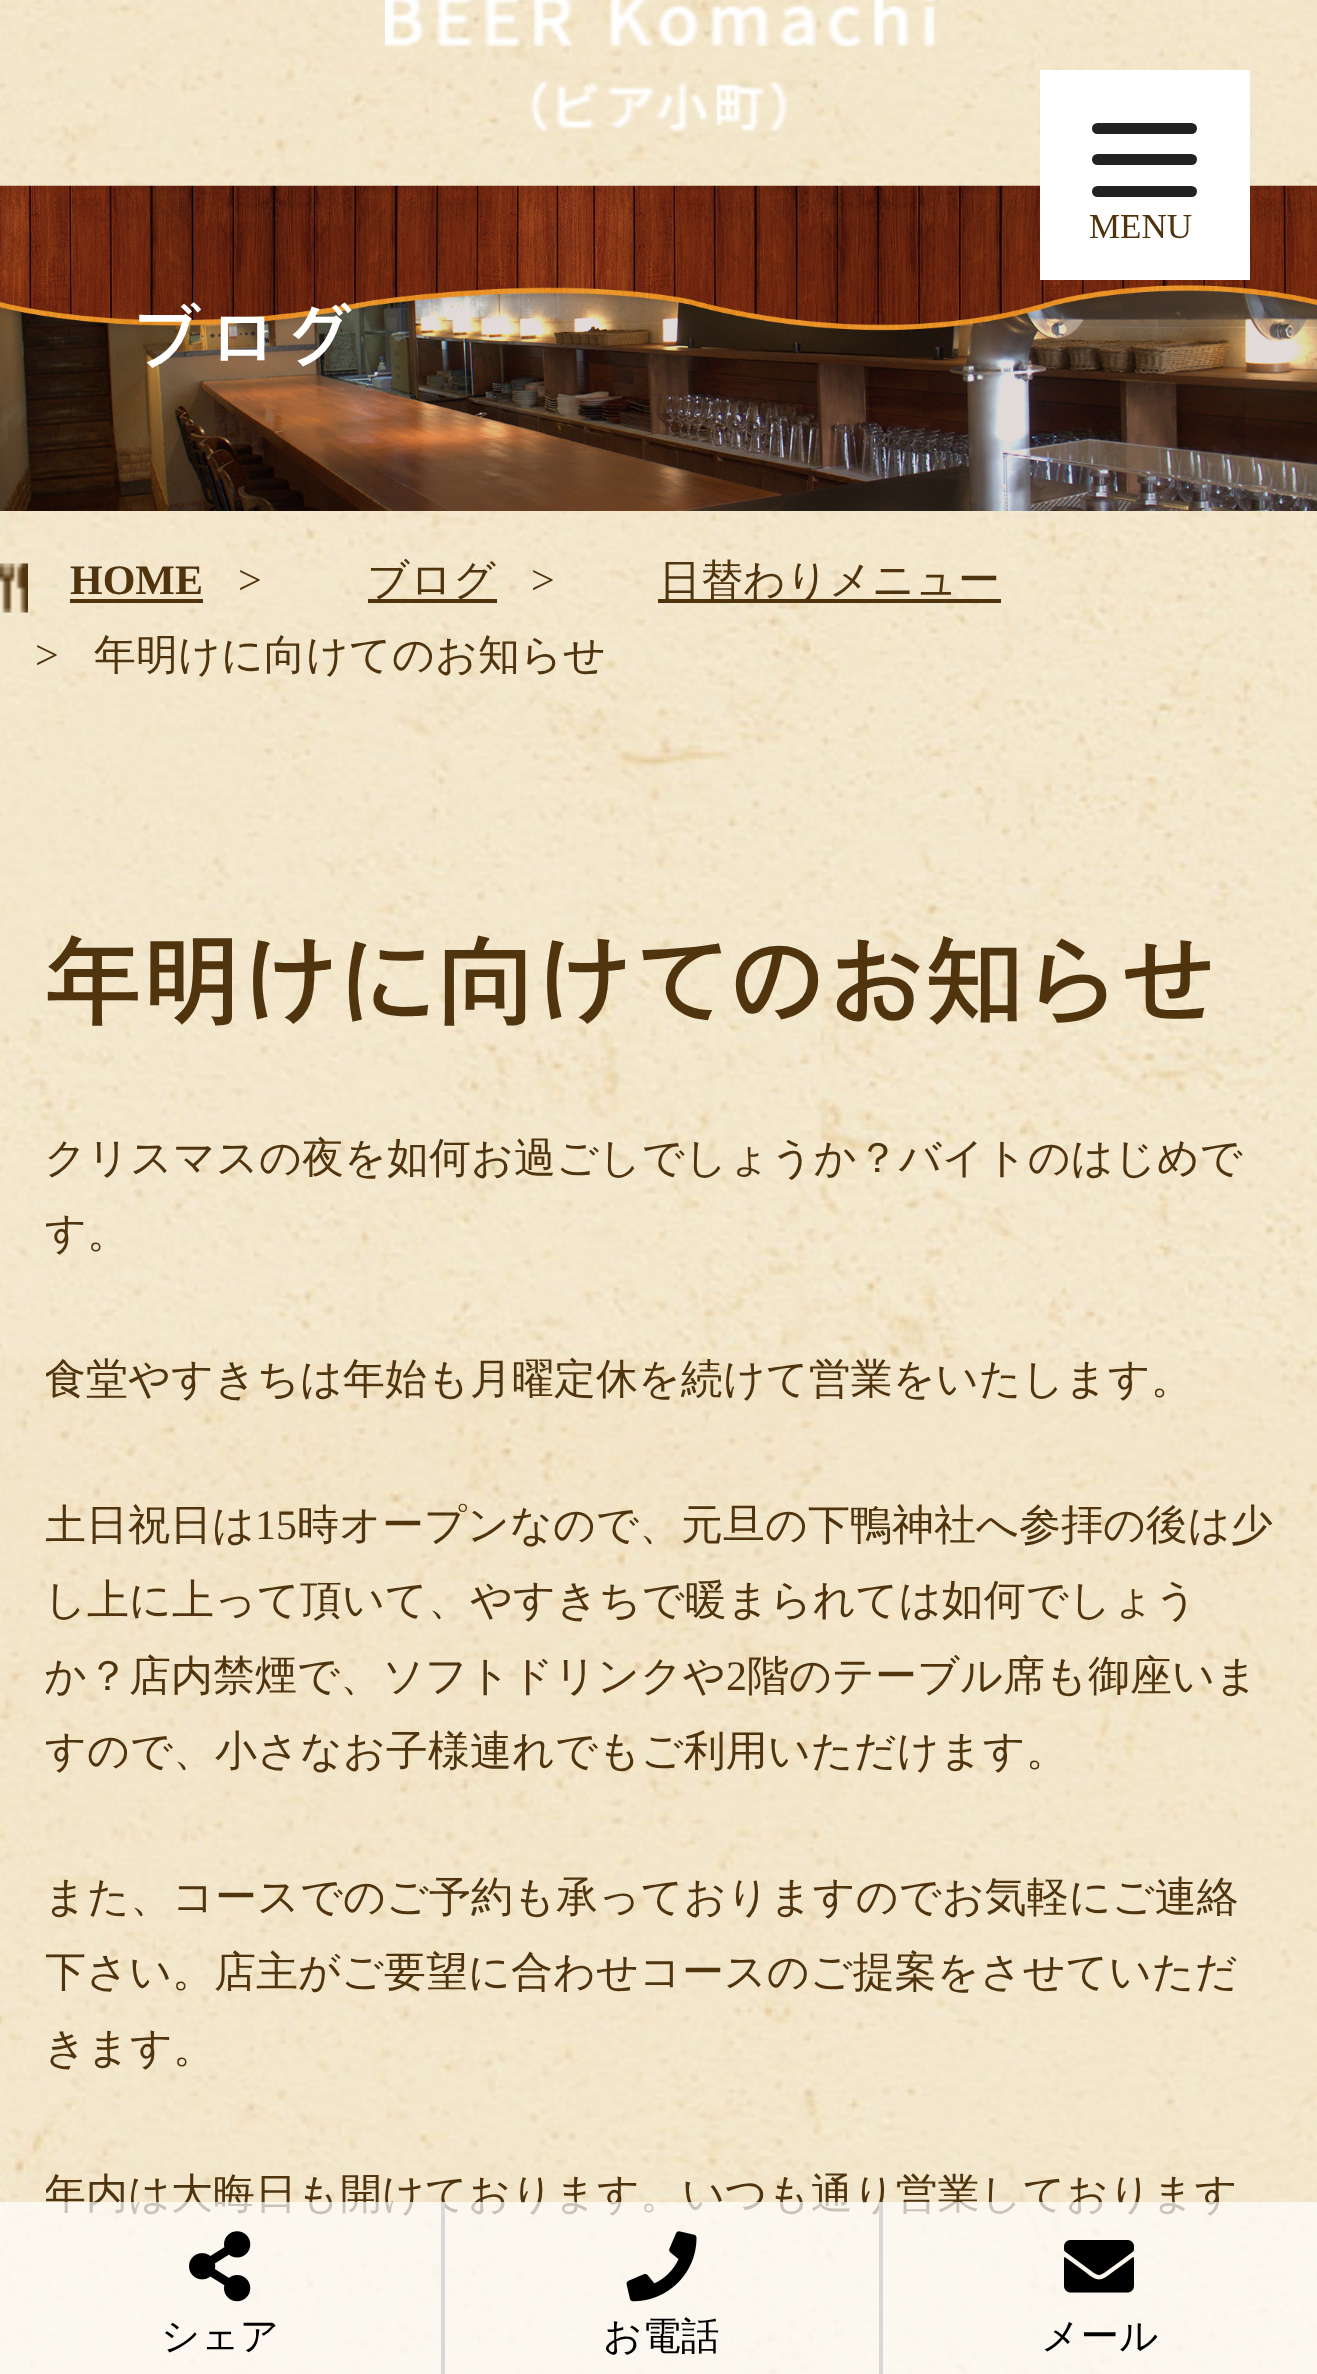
<?xml version="1.0" encoding="UTF-8"?>
<svg xmlns="http://www.w3.org/2000/svg" width="1317" height="2374">
    <defs>
        <clipPath id="clip1"><rect x="46" y="1124" width="1232" height="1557"/></clipPath>
    </defs>
    <rect width="100%" height="100%" fill="#FFFFFF"/>
    <image x="0" y="0" width="1317" height="2374" href="img_01.png"/>
    <image x="0" y="185" width="1317" height="326" href="img_03.png"/>
    <rect x="1040" y="70" width="210" height="210" fill="#FFFFFF"/>
    <rect x="1092" y="123" width="105" height="11" rx="5.5" fill="#222222"/>
    <rect x="1092" y="154" width="105" height="11" rx="5.5" fill="#222222"/>
    <rect x="1092" y="186" width="105" height="11" rx="5.5" fill="#222222"/>
    <text x="1089" y="238" font-family="Liberation Serif" font-size="35" fill="#50340E">MENU</text>
    <image x="385" y="0" width="550" height="133" href="img_02.png"/>
    <text x="132" y="363" font-family="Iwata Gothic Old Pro" font-size="70" letter-spacing="5.5" fill="#FFFFFF">ブログ</text>
    <image x="0" y="563" width="28" height="50" href="img_04.png"/>
    <text x="70" y="594" font-family="Liberation Serif" font-size="42" font-weight="700" fill="#50340E">HOME</text>
    <rect x="70" y="599" width="133" height="4" fill="#50340E"/>
    <text x="238" y="594" font-family="Liberation Serif" font-size="42" fill="#50340E">&gt;</text>
    <rect x="368" y="599" width="129" height="4" fill="#50340E"/>
    <text x="367" y="594" font-family="WenQuanYi Zen Hei" font-size="42" font-weight="500" fill="#50340E">ブログ</text>
    <text x="531" y="594" font-family="Liberation Serif" font-size="42" fill="#50340E">&gt;</text>
    <rect x="658" y="599" width="343" height="4" fill="#50340E"/>
    <text x="659" y="594" font-family="WenQuanYi Zen Hei" font-size="42" font-weight="500" fill="#50340E">日替わりメニュー</text>
    <text x="35" y="669" font-family="Liberation Serif" font-size="42" fill="#50340E">&gt;</text>
    <text x="94" y="669" font-family="WenQuanYi Zen Hei" font-size="42" font-weight="500" fill="#50340E">年明けに向けてのお知らせ</text>
    <text x="44" y="1018" font-family="Iwata Gothic Old Pro" font-size="98" fill="#50340E">年明けに向けてのお知らせ</text>
    <text x="44" y="1172" font-family="WenQuanYi Zen Hei" font-size="42" font-weight="500" fill="#50340E">クリスマスの夜を如何お過ごしでしょうか？バイトのはじめで</text>
    <g clip-path="url(#clip1)">
        <text x="44" y="1247" font-family="WenQuanYi Zen Hei" font-size="42" font-weight="500" fill="#50340E">す。</text>
        <text x="44" y="1393" font-family="WenQuanYi Zen Hei" font-size="42" font-weight="500" fill="#50340E">食堂やすきちは年始も月曜定休を続けて営業をいたします。</text>
        <text x="44" y="1539" font-family="WenQuanYi Zen Hei" font-size="42" font-weight="500" fill="#50340E">土日祝日は</text>
    </g>
    <text x="255" y="1539" font-family="Liberation Serif" font-size="42" fill="#50340E">15</text>
    <text x="297" y="1539" font-family="WenQuanYi Zen Hei" font-size="42" font-weight="500" fill="#50340E">時オープンなので、元旦の下鴨神社へ参拝の後は少</text>
    <text x="44" y="1614" font-family="WenQuanYi Zen Hei" font-size="42" font-weight="500" fill="#50340E">し上に上って頂いて、やすきちで暖まられては如何でしょう</text>
    <g clip-path="url(#clip1)">
        <text x="44" y="1690" font-family="WenQuanYi Zen Hei" font-size="42" font-weight="500" fill="#50340E">か？店内禁煙で、ソフトドリンクや</text>
    </g>
    <text x="726" y="1690" font-family="Liberation Serif" font-size="42" fill="#50340E">2</text>
    <text x="747" y="1690" font-family="WenQuanYi Zen Hei" font-size="42" font-weight="500" fill="#50340E">階のテーブル席も御座いま</text>
    <g clip-path="url(#clip1)">
        <text x="44" y="1765" font-family="WenQuanYi Zen Hei" font-size="42" font-weight="500" fill="#50340E">すので、小さなお子様連れでもご利用いただけます。</text>
    </g>
    <text x="44" y="1911" font-family="WenQuanYi Zen Hei" font-size="42" font-weight="500" fill="#50340E">また、コースでのご予約も承っておりますのでお気軽にご連絡</text>
    <g clip-path="url(#clip1)">
        <text x="44" y="1986" font-family="WenQuanYi Zen Hei" font-size="42" font-weight="500" fill="#50340E">下さい。店主がご要望に合わせコースのご提案をさせていただ</text>
    </g>
    <text x="44" y="2062" font-family="WenQuanYi Zen Hei" font-size="42" font-weight="500" fill="#50340E">きます。</text>
    <g clip-path="url(#clip1)">
        <text x="44" y="2208" font-family="WenQuanYi Zen Hei" font-size="42" font-weight="500" fill="#50340E">年内は大晦日も開けております。いつも通り営業しております</text>
    </g>
    <rect x="0" y="2202" width="1317" height="172" fill="#FFFFFF" fill-opacity="0.7"/>
    <image x="189" y="2231" width="62" height="71" href="img_05.png"/>
    <text x="161" y="2349" font-family="WenQuanYi Zen Hei" font-size="38.5" font-weight="500" fill="#000000">シェア</text>
    <rect x="441" y="2202" width="4" height="172" fill="#D8D8D8"/>
    <image x="626" y="2231" width="71" height="71" href="img_06.png"/>
    <text x="603" y="2349" font-family="WenQuanYi Zen Hei" font-size="38.5" font-weight="500" fill="#000000">お電話</text>
    <rect x="879" y="2202" width="4" height="172" fill="#D8D8D8"/>
    <image x="1064" y="2240" width="70" height="53" href="img_07.png"/>
    <text x="1041" y="2349" font-family="WenQuanYi Zen Hei" font-size="38.5" font-weight="500" fill="#000000">メール</text>
</svg>
